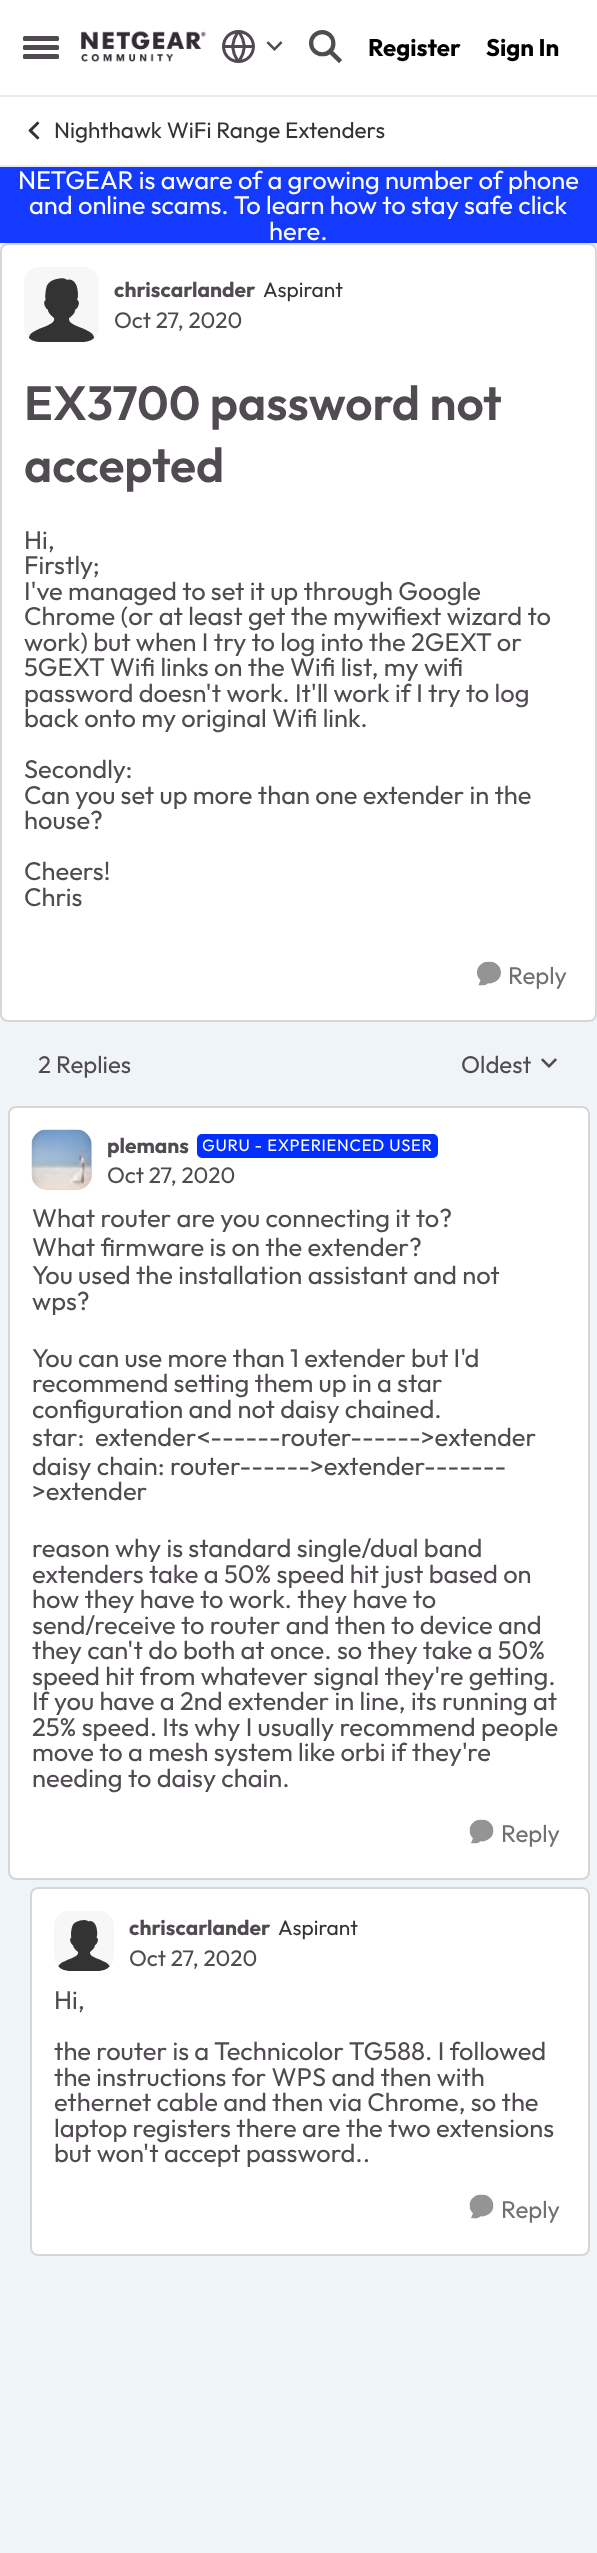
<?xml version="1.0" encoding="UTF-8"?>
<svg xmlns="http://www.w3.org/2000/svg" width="597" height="2553">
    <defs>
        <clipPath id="clip1"><rect x="203" y="1137" width="229" height="18"/></clipPath>
    </defs>
    <rect width="100%" height="100%" fill="#EFF4F9"/>
    <rect x="0" y="0" width="597" height="165" fill="#FFFFFF"/>
    <rect x="0" y="95" width="597" height="2" fill="#000000" fill-opacity="0.08"/>
    <rect x="23" y="36" width="36" height="5" rx="1.5" fill="#504B51"/>
    <rect x="23" y="45" width="36" height="5" rx="1.5" fill="#504B51"/>
    <rect x="23" y="54" width="36" height="5" rx="1.5" fill="#504B51"/>
    <image x="81" y="31" width="125" height="31" href="img_01.png"/>
    <image x="222" y="30" width="33" height="33" href="img_02.png"/>
    <image x="266" y="41" width="17" height="10" href="img_03.png"/>
    <image x="309" y="30" width="33" height="34" href="img_04.png"/>
    <text x="368" y="56" font-family="Outfit" font-size="24" font-weight="700" fill="#000000">Register</text>
    <text x="486" y="56" font-family="Outfit" font-size="24" font-weight="700" fill="#000000">Sign In</text>
    <rect x="0" y="165" width="597" height="2" fill="#EBEBEB"/>
    <image x="28" y="121" width="12" height="19" href="img_05.png"/>
    <text x="54" y="138" font-family="Outfit" font-size="22.5" fill="#333333">Nighthawk WiFi Range Extenders</text>
    <rect x="0" y="167" width="597" height="76" fill="#1439FF"/>
    <text x="18" y="189" font-family="Outfit" font-size="25.5" fill="#FFFFFF">NETGEAR is aware of a growing number of phone</text>
    <text x="29" y="214" font-family="Outfit" font-size="25.5" fill="#FFFFFF">and online scams. To learn how to stay safe click</text>
    <text x="269" y="240" font-family="Outfit" font-size="25.5" fill="#FFFFFF">here.</text>
    <rect x="0" y="243" width="597" height="779" rx="8" fill="#FFFFFF"/>
    <rect x="1" y="244" width="595" height="777" rx="7" fill="none" stroke="#000000" stroke-opacity="0.16" stroke-width="2"/>
    <image x="24" y="267" width="75" height="75" href="img_06.png"/>
    <text x="114" y="297" font-family="Outfit" font-size="21" font-weight="700" fill="#504B51">chriscarlander</text>
    <text x="263" y="297" font-family="Outfit" font-size="21" fill="#333333">Aspirant</text>
    <text x="114" y="328" font-family="Outfit" font-size="22.5" fill="#504B51">Oct 27, 2020</text>
    <text font-family="Outfit" font-size="48" font-weight="600" fill="#504B51">
        <tspan x="24" y="420">EX3700 password not</tspan>
        <tspan x="24" y="482">accepted</tspan>
    </text>
    <text font-family="Outfit" font-size="25.5" fill="#504B51">
        <tspan x="24" y="549">Hi,</tspan>
        <tspan x="24" y="574">Firstly;</tspan>
        <tspan x="24" y="600">I've managed to set it up through Google</tspan>
        <tspan x="24" y="625">Chrome (or at least get the mywifiext wizard to</tspan>
        <tspan x="24" y="651">work) but when I try to log into the 2GEXT or</tspan>
        <tspan x="24" y="676">5GEXT Wifi links on the Wifi list, my wifi</tspan>
        <tspan x="24" y="702">password doesn't work. It'll work if I try to log</tspan>
        <tspan x="24" y="727">back onto my original Wifi link.</tspan>
    </text>
    <text font-family="Outfit" font-size="25.5" fill="#504B51">
        <tspan x="24" y="778">Secondly:</tspan>
        <tspan x="24" y="804">Can you set up more than one extender in the</tspan>
        <tspan x="24" y="829">house?</tspan>
    </text>
    <text font-family="Outfit" font-size="25.5" fill="#504B51">
        <tspan x="24" y="880">Cheers!</tspan>
        <tspan x="24" y="906">Chris</tspan>
    </text>
    <image x="477" y="961" width="24" height="25" href="img_07.png"/>
    <text x="508" y="984" font-family="Outfit" font-size="24" fill="#707070">Reply</text>
    <text x="38" y="1073" font-family="Outfit" font-size="24" fill="#504B51">2 Replies</text>
    <text x="461" y="1073" font-family="Outfit" font-size="24" fill="#504B51">Oldest</text>
    <image x="541" y="1058" width="16" height="10" href="img_08.png"/>
    <rect x="8" y="1106" width="582" height="774" rx="8" fill="#FFFFFF"/>
    <rect x="9" y="1107" width="580" height="772" rx="7" fill="none" stroke="#000000" stroke-opacity="0.16" stroke-width="2"/>
    <rect x="32" y="1130" width="60" height="60" rx="15" fill="#D9D9D9"/>
    <image x="31" y="1129" width="61" height="61" href="img_09.png"/>
    <text x="107" y="1153" font-family="Outfit" font-size="21" font-weight="700" fill="#504B51">plemans</text>
    <rect x="198" y="1135" width="239" height="22" rx="4" fill="#002FFF" stroke="#002FFF" stroke-width="2"/>
    <g clip-path="url(#clip1)">
        <text x="202" y="1151" font-family="Outfit" font-size="16.5" letter-spacing="0.75" fill="#FFFFFF">GURU - EXPERIENCED USER</text>
    </g>
    <text x="107" y="1183" font-family="Outfit" font-size="22.5" fill="#504B51">Oct 27, 2020</text>
    <text font-family="Outfit" font-size="25.5" fill="#504B51">
        <tspan x="32" y="1227">What router are you connecting it to?</tspan>
        <tspan x="32" y="1256">What firmware is on the extender?</tspan>
        <tspan x="32" y="1284">You used the installation assistant and not</tspan>
        <tspan x="32" y="1310">wps?</tspan>
    </text>
    <text font-family="Outfit" font-size="25.5" fill="#504B51" xml:space="preserve"><tspan x="32" y="1367">You can use more than 1 extender but I'd</tspan><tspan x="32" y="1392">recommend setting them up in a star</tspan><tspan x="32" y="1418">configuration and not daisy chained.</tspan><tspan x="32" y="1446">star:  extender&lt;------router------&gt;extender</tspan><tspan x="32" y="1475">daisy chain: router------&gt;extender-------</tspan><tspan x="32" y="1500">&gt;extender</tspan></text>
    <text font-family="Outfit" font-size="25.5" fill="#504B51">
        <tspan x="32" y="1557">reason why is standard single/dual band</tspan>
        <tspan x="32" y="1583">extenders take a 50% speed hit just based on</tspan>
        <tspan x="32" y="1608">how they have to work. they have to</tspan>
        <tspan x="32" y="1634">send/receive to router and then to device and</tspan>
        <tspan x="32" y="1659">they can't do both at once. so they take a 50%</tspan>
        <tspan x="32" y="1685">speed hit from whatever signal they're getting.</tspan>
        <tspan x="32" y="1710">If you have a 2nd extender in line, its running at</tspan>
        <tspan x="32" y="1736">25% speed. Its why I usually recommend people</tspan>
        <tspan x="32" y="1761">move to a mesh system like orbi if they're</tspan>
        <tspan x="32" y="1787">needing to daisy chain.</tspan>
    </text>
    <image x="469" y="1819" width="25" height="25" href="img_10.png"/>
    <text x="501" y="1842" font-family="Outfit" font-size="24" fill="#707070">Reply</text>
    <rect x="30" y="1887" width="560" height="369" rx="8" fill="#FFFFFF"/>
    <rect x="31" y="1888" width="558" height="367" rx="7" fill="none" stroke="#000000" stroke-opacity="0.16" stroke-width="2"/>
    <image x="54" y="1911" width="60" height="60" href="img_11.png"/>
    <text x="129" y="1935" font-family="Outfit" font-size="21" font-weight="700" fill="#504B51">chriscarlander</text>
    <text x="278" y="1935" font-family="Outfit" font-size="21" fill="#333333">Aspirant</text>
    <text x="129" y="1966" font-family="Outfit" font-size="22.5" fill="#504B51">Oct 27, 2020</text>
    <text x="54" y="2009" font-family="Outfit" font-size="25.5" fill="#504B51">Hi,</text>
    <text font-family="Outfit" font-size="25.5" fill="#504B51">
        <tspan x="54" y="2060">the router is a Technicolor TG588. I followed</tspan>
        <tspan x="54" y="2086">the instructions for WPS and then with</tspan>
        <tspan x="54" y="2111">ethernet cable and then via Chrome, so the</tspan>
        <tspan x="54" y="2137">laptop registers there are the two extensions</tspan>
        <tspan x="54" y="2162">but won't accept password..</tspan>
    </text>
    <image x="469" y="2194" width="25" height="25" href="img_10.png"/>
    <text x="501" y="2218" font-family="Outfit" font-size="24" fill="#707070">Reply</text>
</svg>
